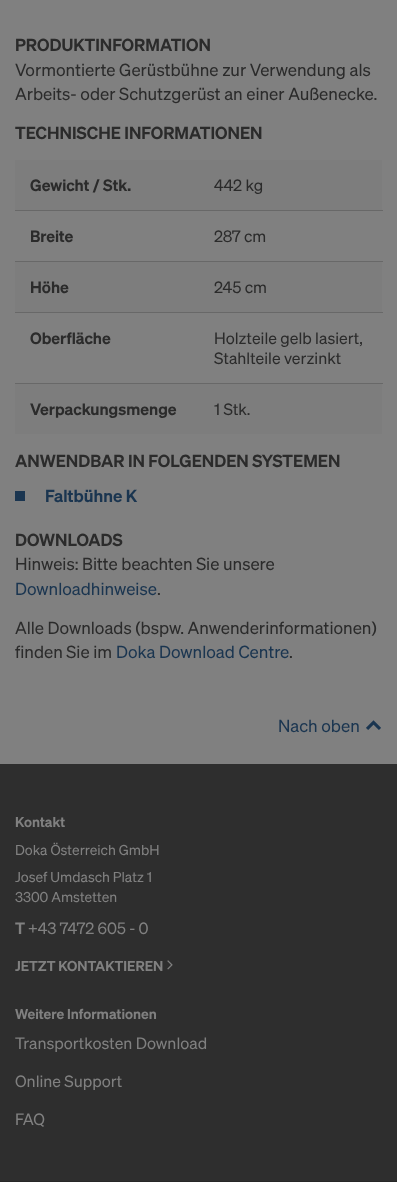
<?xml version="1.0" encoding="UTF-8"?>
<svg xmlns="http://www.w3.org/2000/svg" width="397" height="1182">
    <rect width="100%" height="100%" fill="#808080"/>
    <text x="15" y="51" font-family="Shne" font-size="17" font-weight="600" fill="#2B2B2B">PRODUKTINFORMATION</text>
    <text font-family="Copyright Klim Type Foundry" font-size="17" fill="#2B2B2B">
        <tspan x="15" y="76">Vormontierte Gerüstbühne zur Verwendung als</tspan>
        <tspan x="15" y="100">Arbeits- oder Schutzgerüst an einer Außenecke.</tspan>
    </text>
    <text x="15" y="139" font-family="Shne" font-size="17" font-weight="600" fill="#2B2B2B">TECHNISCHE INFORMATIONEN</text>
    <rect x="15" y="160" width="367" height="50" fill="#7D7D7D"/>
    <rect x="15" y="210" width="368" height="1" fill="#686868"/>
    <text x="30" y="191" font-family="Shne" font-size="16" font-weight="600" fill="#2B2B2B">Gewicht / Stk.</text>
    <text x="214" y="191" font-family="Copyright Klim Type Foundry" font-size="16" fill="#2B2B2B">442 kg</text>
    <rect x="15" y="261" width="368" height="1" fill="#686868"/>
    <text x="30" y="242" font-family="Shne" font-size="16" font-weight="600" fill="#2B2B2B">Breite</text>
    <text x="214" y="242" font-family="Copyright Klim Type Foundry" font-size="16" fill="#2B2B2B">287 cm</text>
    <rect x="15" y="262" width="367" height="50" fill="#7D7D7D"/>
    <rect x="15" y="312" width="368" height="1" fill="#686868"/>
    <text x="30" y="293" font-family="Shne" font-size="16" font-weight="600" fill="#2B2B2B">Höhe</text>
    <text x="214" y="293" font-family="Copyright Klim Type Foundry" font-size="16" fill="#2B2B2B">245 cm</text>
    <rect x="15" y="383" width="368" height="1" fill="#686868"/>
    <text x="30" y="344" font-family="Shne" font-size="16" font-weight="600" fill="#2B2B2B">Oberfläche</text>
    <text font-family="Copyright Klim Type Foundry" font-size="16" fill="#2B2B2B">
        <tspan x="214" y="344">Holzteile gelb lasiert,</tspan>
        <tspan x="214" y="364">Stahlteile verzinkt</tspan>
    </text>
    <rect x="15" y="384" width="367" height="50" fill="#7D7D7D"/>
    <text x="30" y="415" font-family="Shne" font-size="16" font-weight="600" fill="#2B2B2B">Verpackungsmenge</text>
    <text x="214" y="415" font-family="Copyright Klim Type Foundry" font-size="16" fill="#2B2B2B">1 Stk.</text>
    <text x="15" y="467" font-family="Shne" font-size="17" font-weight="600" fill="#2B2B2B">ANWENDBAR IN FOLGENDEN SYSTEMEN</text>
    <rect x="15" y="491" width="10" height="10" fill="#1A3550"/>
    <text x="45" y="502" font-family="Shne" font-size="17" font-weight="600" fill="#1A3550">Faltbühne K</text>
    <text x="15" y="546" font-family="Shne" font-size="17" font-weight="600" fill="#2B2B2B">DOWNLOADS</text>
    <text x="15" y="570" font-family="Copyright Klim Type Foundry" font-size="17" fill="#2B2B2B">Hinweis: Bitte beachten Sie unsere</text>
    <text x="15" y="595" font-family="Copyright Klim Type Foundry" font-size="17" fill="#1A3550">Downloadhinweise</text>
    <text x="157" y="595" font-family="Copyright Klim Type Foundry" font-size="17" fill="#2B2B2B">.</text>
    <text font-family="Copyright Klim Type Foundry" font-size="17" fill="#2B2B2B">
        <tspan x="15" y="634">Alle Downloads (bspw. Anwenderinformationen)</tspan>
        <tspan x="15" y="658">finden Sie im</tspan>
    </text>
    <text x="116" y="658" font-family="Copyright Klim Type Foundry" font-size="17" fill="#1A3550">Doka Download Centre</text>
    <text x="289" y="658" font-family="Copyright Klim Type Foundry" font-size="17" fill="#2B2B2B">.</text>
    <text x="278" y="732" font-family="Copyright Klim Type Foundry" font-size="17" fill="#1A3550">Nach oben</text>
    <image x="366" y="720" width="15" height="10" href="img_01.png"/>
    <rect x="0" y="764" width="397" height="417" fill="#2E2E2E"/>
    <text x="15" y="827" font-family="Shne" font-size="14" font-weight="600" fill="#808080">Kontakt</text>
    <text font-family="Copyright Klim Type Foundry" font-size="14" fill="#808080">
        <tspan x="15" y="855">Doka Österreich GmbH</tspan>
        <tspan x="15" y="882">Josef Umdasch Platz 1</tspan>
        <tspan x="15" y="902">3300 Amstetten</tspan>
    </text>
    <text x="15" y="934" font-family="Shne" font-size="16" font-weight="600" fill="#808080">T</text>
    <text x="28" y="934" font-family="Copyright Klim Type Foundry" font-size="16" fill="#808080">+43 7472 605 - 0</text>
    <text x="15" y="971" font-family="Shne" font-size="14" font-weight="600" fill="#808080">JETZT KONTAKTIEREN</text>
    <image x="167" y="960" width="6" height="10" href="img_02.png"/>
    <text x="15" y="1019" font-family="Shne" font-size="14" font-weight="600" fill="#808080">Weitere Informationen</text>
    <text x="15" y="1049" font-family="Copyright Klim Type Foundry" font-size="16" fill="#808080">Transportkosten Download</text>
    <text x="15" y="1087" font-family="Copyright Klim Type Foundry" font-size="16" fill="#808080">Online Support</text>
    <text x="15" y="1125" font-family="Copyright Klim Type Foundry" font-size="16" fill="#808080">FAQ</text>
    <rect x="0" y="1181" width="397" height="1" fill="#272727"/>
</svg>
